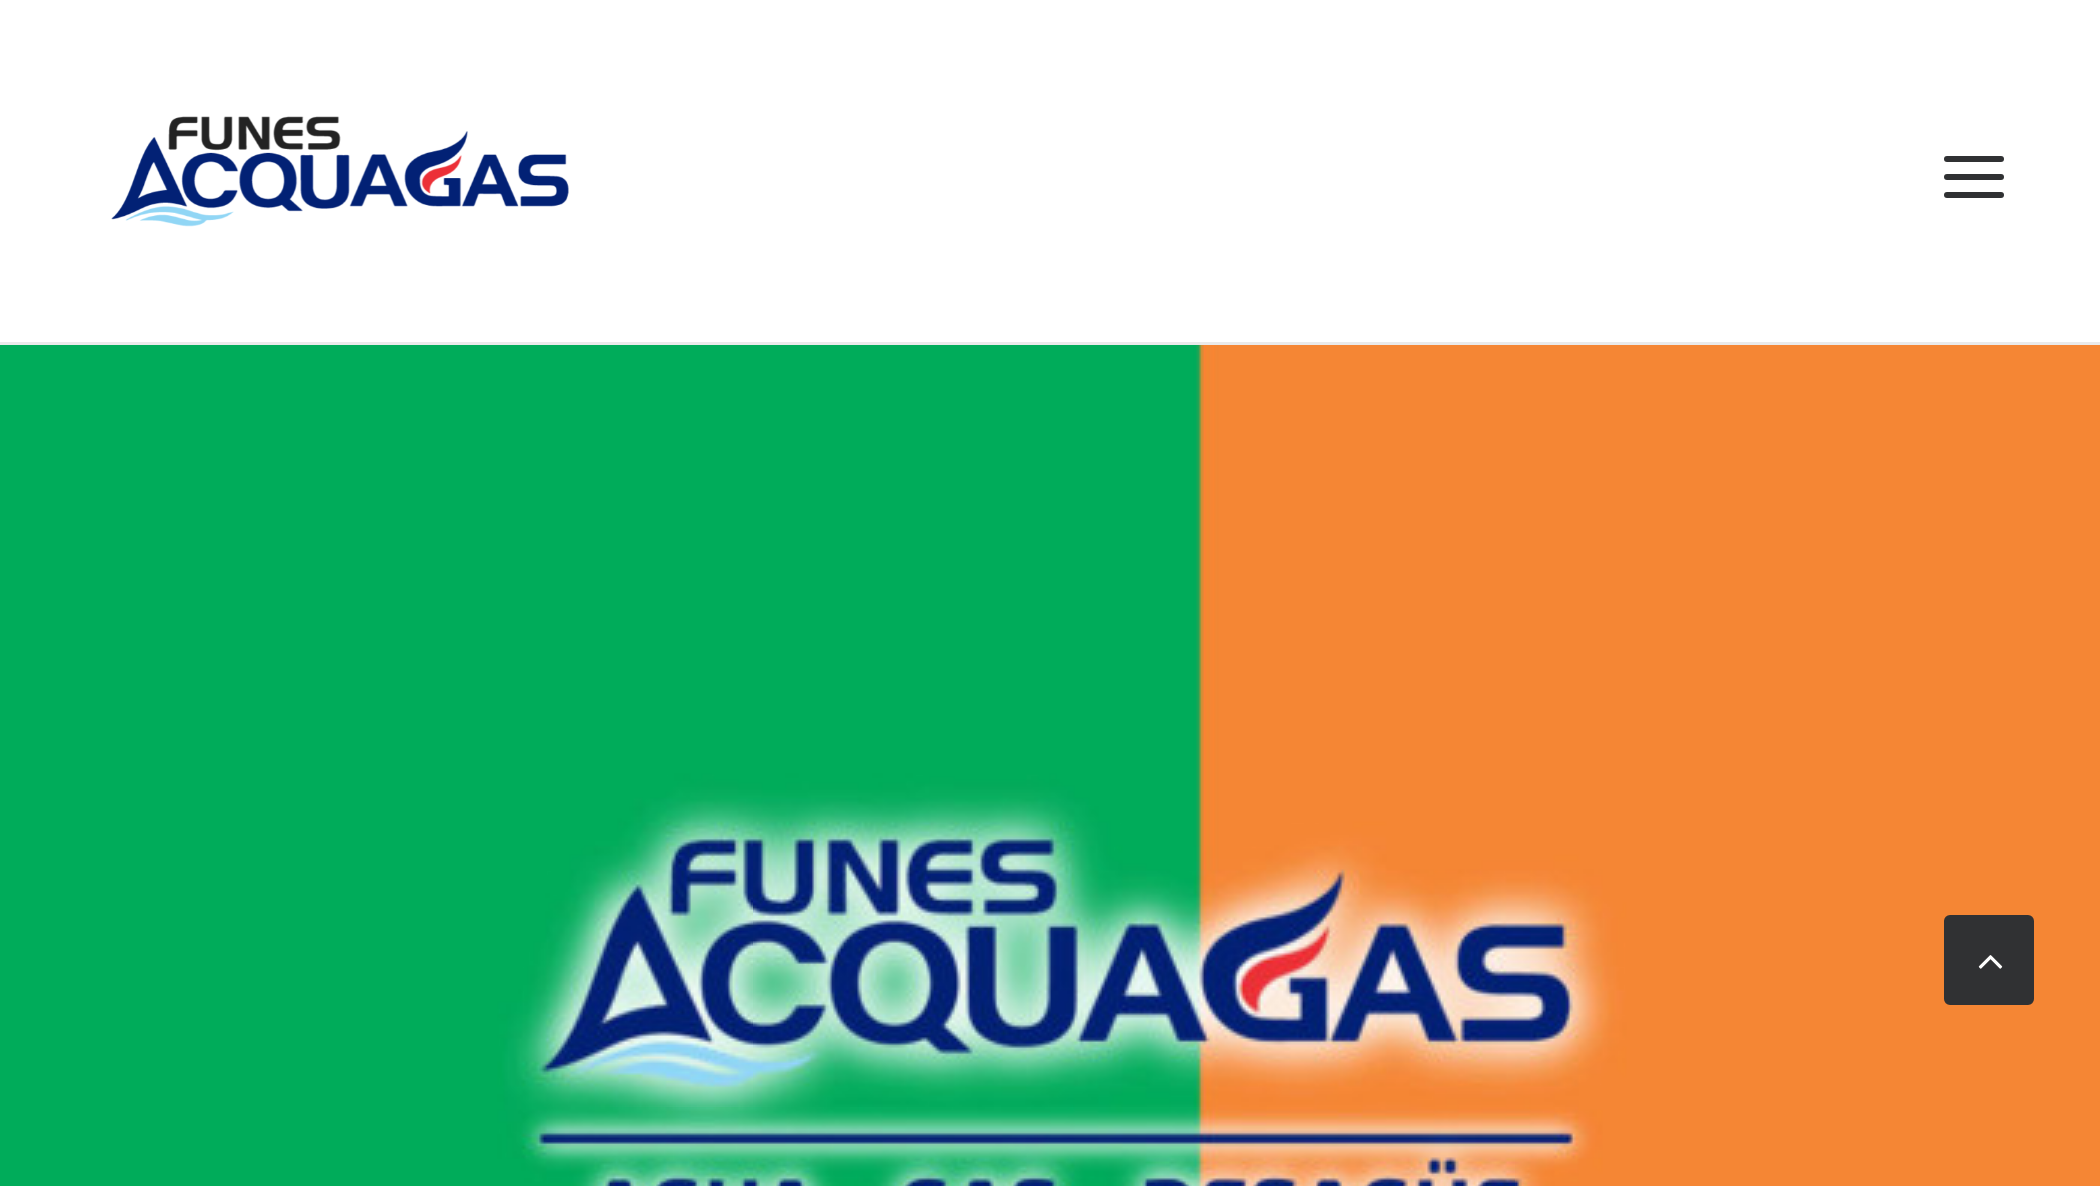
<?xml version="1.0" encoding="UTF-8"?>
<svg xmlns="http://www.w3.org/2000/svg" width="2100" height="1186">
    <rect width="100%" height="100%" fill="#FFFFFF"/>
    <rect x="0" y="342" width="2100" height="3" fill="#EAEAEA"/>
    <image x="111" y="116" width="458" height="111" href="img_01.png"/>
    <rect x="1944" y="174" width="60" height="6" rx="3" fill="#303133"/>
    <rect x="1944" y="156" width="60" height="6" rx="3" fill="#303133"/>
    <rect x="1944" y="192" width="60" height="6" rx="3" fill="#303133"/>
    <image x="0" y="345" width="2100" height="841" href="img_02.png"/>
    <rect x="1945.5" y="916.5" width="87" height="87" rx="4.5" fill="#303133" stroke="#303133" stroke-width="3"/>
    <image x="1978" y="955" width="25" height="14" href="img_03.png"/>
</svg>
